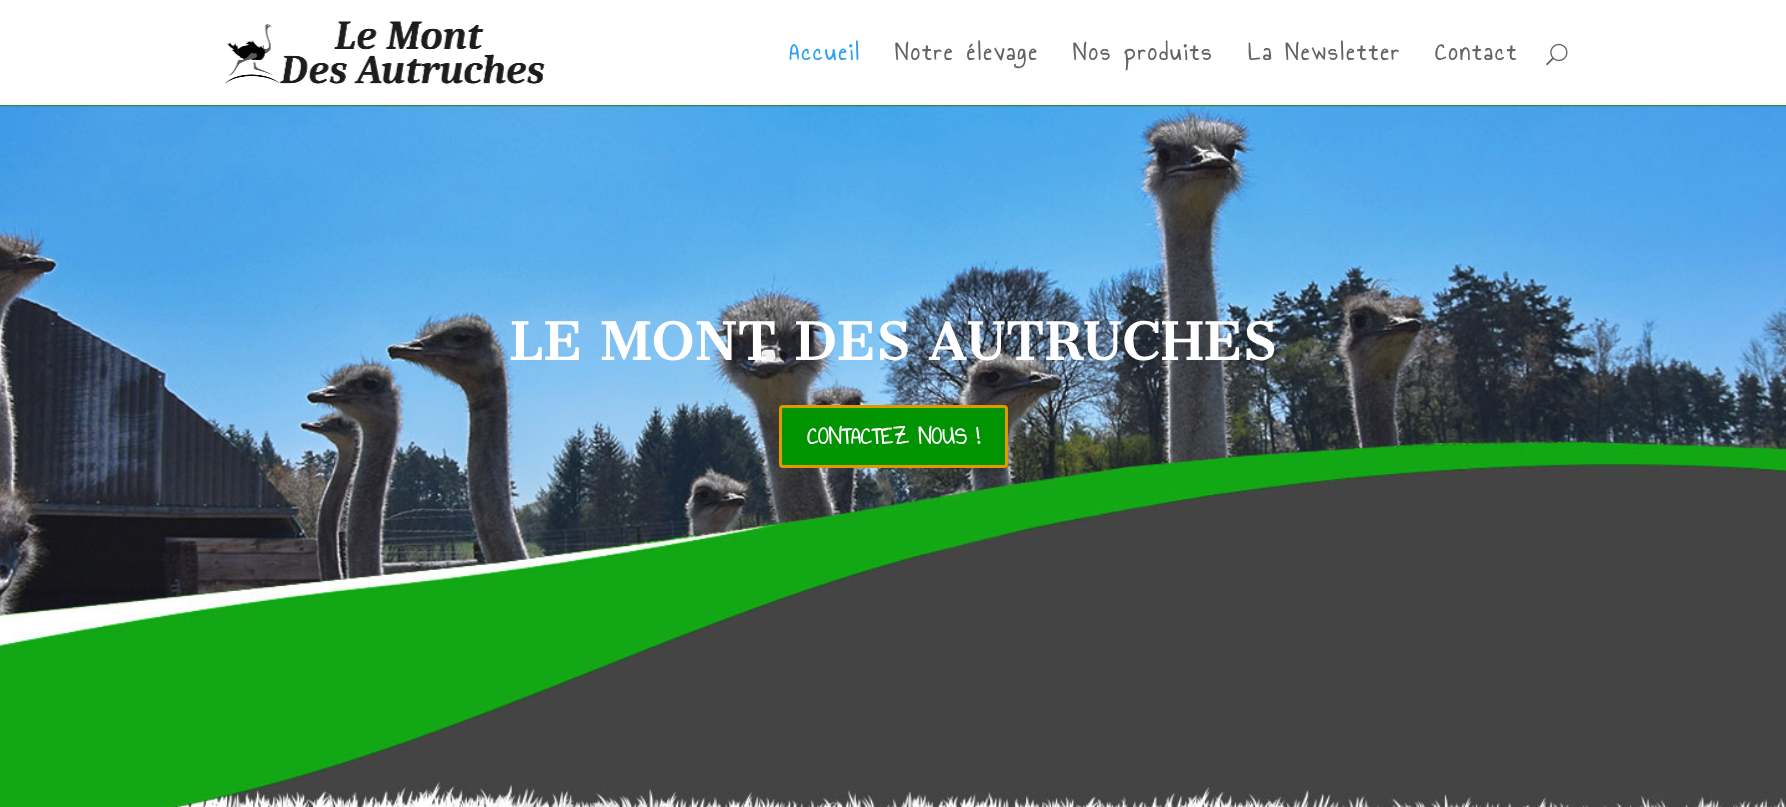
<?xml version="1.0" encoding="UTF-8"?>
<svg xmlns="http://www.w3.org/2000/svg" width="1786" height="807">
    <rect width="100%" height="100%" fill="#FFFFFF"/>
    <image x="0" y="105" width="1786" height="702" href="img_03.png"/>
    <rect x="0" y="105" width="1786" height="1" fill="#000000" fill-opacity="0.1"/>
    <image x="224" y="21" width="321" height="63" href="img_01.png"/>
    <text x="789" y="60" font-family="Annie Use Your Telescope" font-size="25" font-weight="700" letter-spacing="2.5" fill="#2EA3F2">Accueil</text>
    <text x="895" y="60" font-family="Annie Use Your Telescope" font-size="25" font-weight="700" letter-spacing="2.5" fill="#636363">Notre élevage</text>
    <text x="1073" y="60" font-family="Annie Use Your Telescope" font-size="25" font-weight="700" letter-spacing="2.5" fill="#636363">Nos produits</text>
    <text x="1248" y="60" font-family="Annie Use Your Telescope" font-size="25" font-weight="700" letter-spacing="2.5" fill="#636363">La Newsletter</text>
    <text x="1435" y="60" font-family="Annie Use Your Telescope" font-size="25" font-weight="700" letter-spacing="2.5" fill="#636363">Contact</text>
    <image x="1546" y="43" width="22" height="23" href="img_02.png"/>
    <text x="509" y="360" font-family="Cantata One" font-size="50" font-weight="700" letter-spacing="1.25" fill="#FFFFFF">LE MONT DES AUTRUCHES</text>
    <rect x="780.5" y="406.5" width="226" height="60" rx="2.5" fill="#009302" stroke="#E09900" stroke-width="3"/>
    <text x="807" y="444" font-family="Annie Use Your Telescope" font-size="25" font-weight="700" fill="#FFFFFF">CONTACTEZ NOUS !</text>
</svg>
